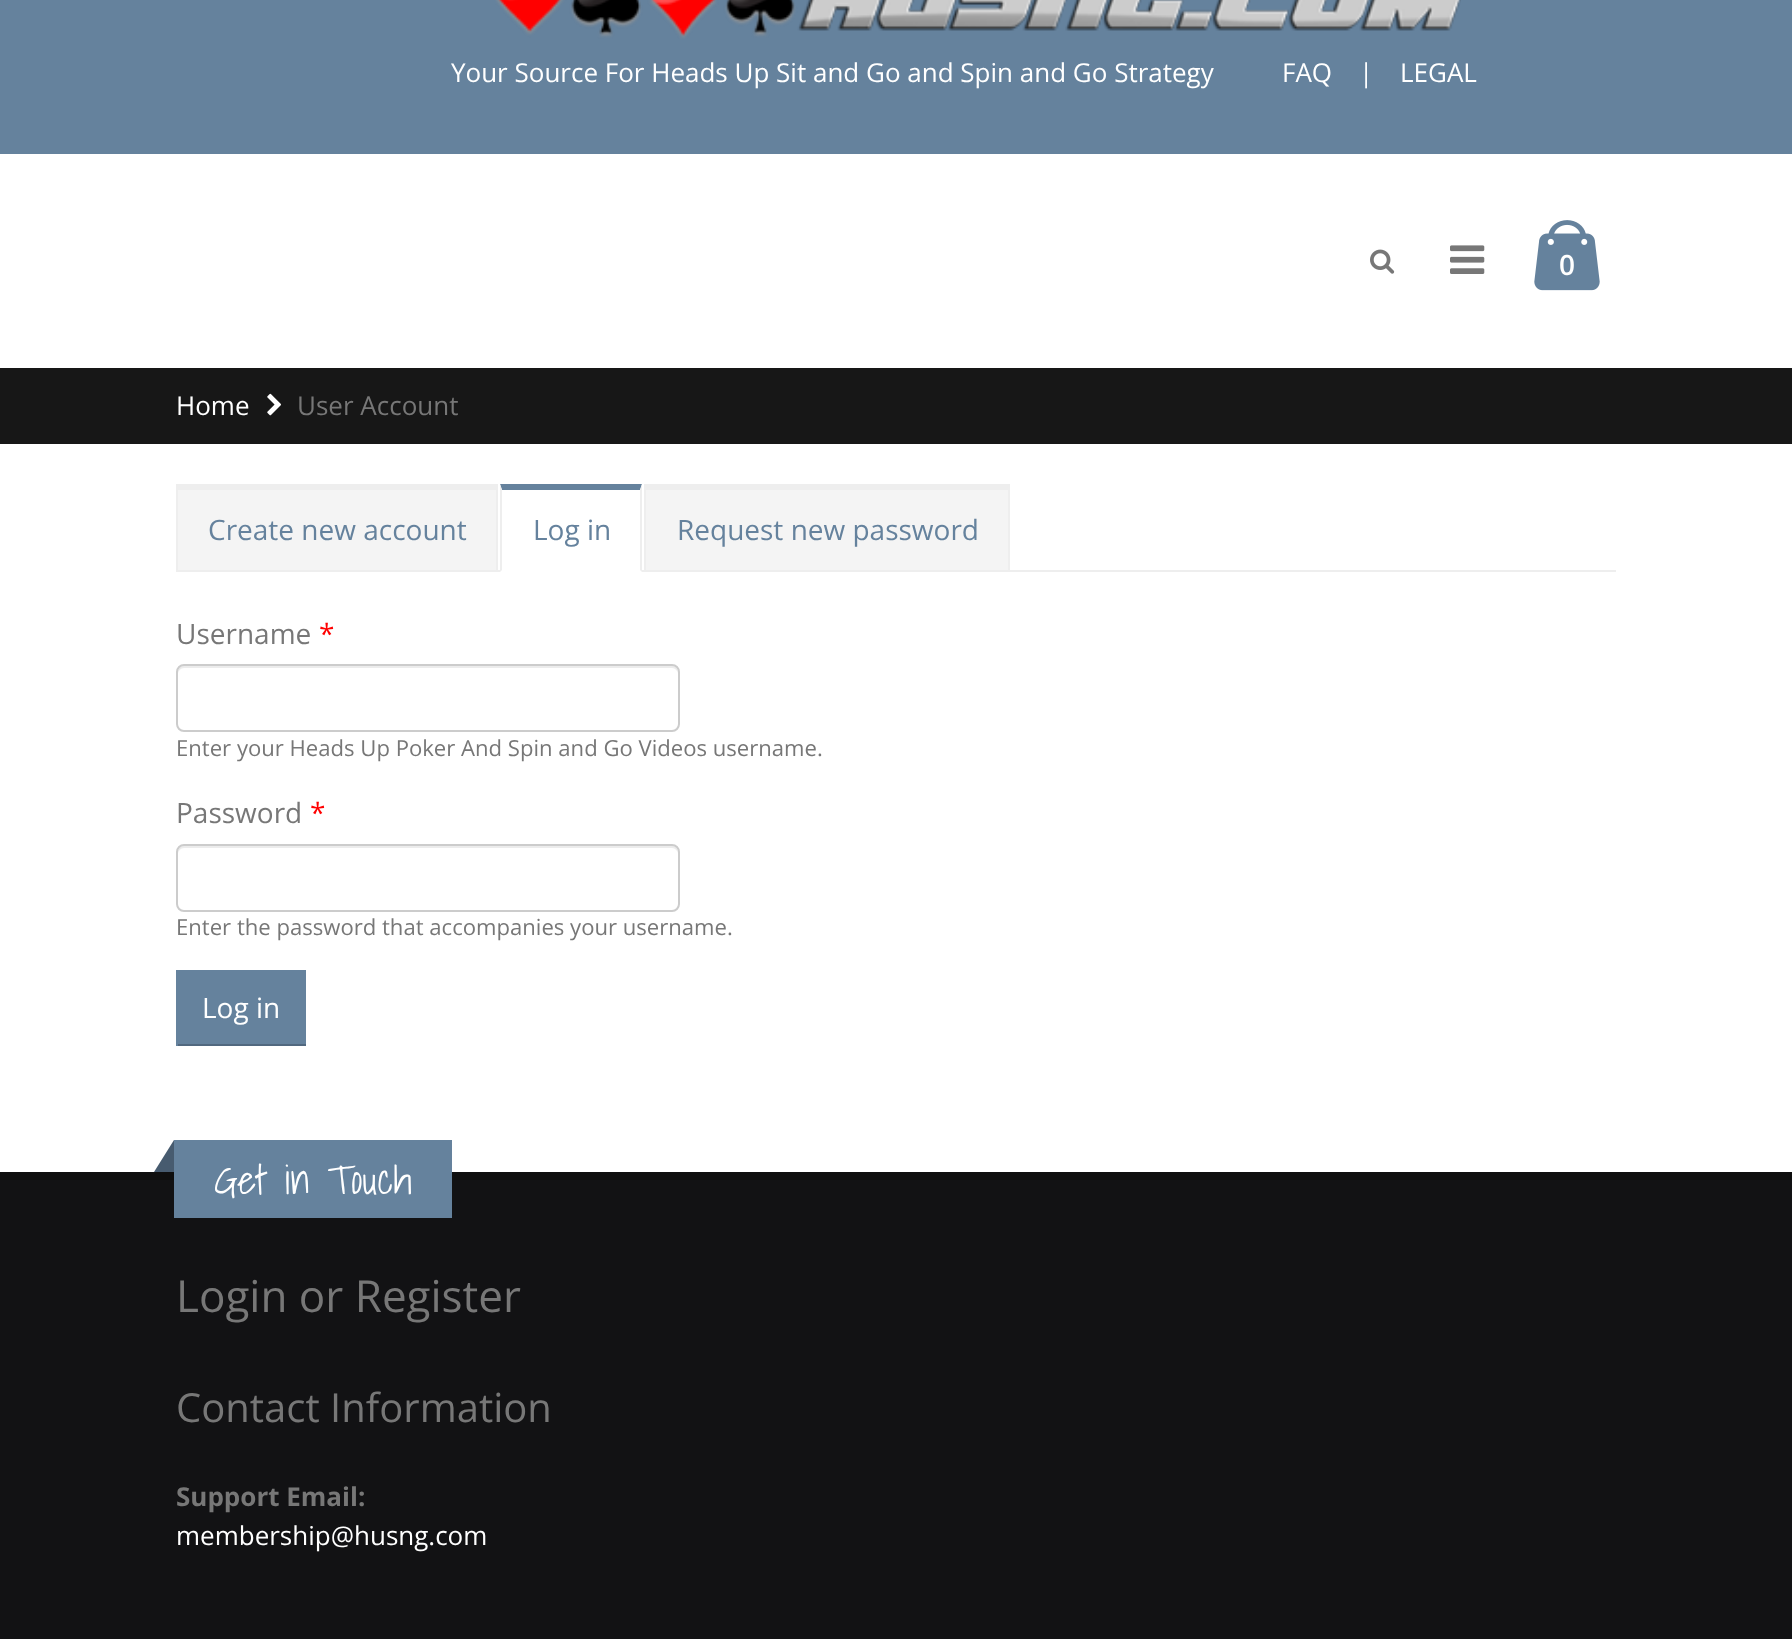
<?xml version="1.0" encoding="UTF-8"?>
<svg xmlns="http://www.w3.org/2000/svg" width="1792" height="1639">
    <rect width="100%" height="100%" fill="#FFFFFF"/>
    <rect x="0" y="0" width="1792" height="154" fill="#65829D"/>
    <image x="495" y="0" width="966" height="39" href="img_01.png"/>
    <text x="451" y="82" font-family="Open Sans" font-size="26" fill="#FFFFFF">Your Source For Heads Up Sit and Go and Spin and Go Strategy</text>
    <text x="1282" y="82" font-family="Open Sans" font-size="26" fill="#FFFFFF">FAQ</text>
    <text x="1359" y="82" font-family="Open Sans" font-size="26" fill="#FFFFFF">|</text>
    <text x="1400" y="82" font-family="Open Sans" font-size="26" fill="#FFFFFF">LEGAL</text>
    <image x="1370" y="249" width="25" height="25" href="img_02.png"/>
    <image x="1450" y="245" width="35" height="29" href="img_03.png"/>
    <image x="1534" y="220" width="66" height="71" href="img_04.png"/>
    <text x="1559" y="275" font-family="Open Sans" font-size="28" font-weight="600" fill="#FFFFFF">0</text>
    <rect x="0" y="368" width="1792" height="76" fill="#171717"/>
    <text x="176" y="415" font-family="Open Sans" font-size="26" fill="#FFFFFF">Home</text>
    <image x="267" y="393" width="14" height="23" href="img_05.png"/>
    <text x="297" y="415" font-family="Open Sans" font-size="26" fill="#777777">User Account</text>
    <rect x="176" y="570" width="1440" height="2" fill="#EEEEEE"/>
    <rect x="178" y="490" width="318" height="80" fill="#F4F4F4"/>
    <rect x="176" y="484" width="322" height="6" fill="#EEEEEE"/>
    <rect x="496" y="484" width="2" height="86" fill="#EEEEEE"/>
    <rect x="176" y="484" width="2" height="86" fill="#EEEEEE"/>
    <text x="208" y="540" font-family="Open Sans" font-size="28" fill="#65829D">Create new account</text>
    <rect x="500" y="570" width="142" height="2" fill="#FFFFFF"/>
    <path d="M 500 484 H 642 L 640 490 H 502 Z" fill="#65829D"/>
    <path d="M 642 484 V 572 L 640 570 V 490 Z" fill="#EEEEEE"/>
    <path d="M 500 572 V 484 L 502 490 V 570 Z" fill="#EEEEEE"/>
    <text x="533" y="540" font-family="Open Sans" font-size="28" fill="#65829D">Log in</text>
    <rect x="646" y="490" width="362" height="80" fill="#F4F4F4"/>
    <rect x="644" y="484" width="366" height="6" fill="#EEEEEE"/>
    <rect x="1008" y="484" width="2" height="86" fill="#EEEEEE"/>
    <rect x="644" y="484" width="2" height="86" fill="#EEEEEE"/>
    <text x="677" y="540" font-family="Open Sans" font-size="28" fill="#65829D">Request new password</text>
    <text x="176" y="644" font-family="Open Sans" font-size="28" fill="#777777">Username</text>
    <text x="319" y="644" font-family="Open Sans" font-size="28" fill="#FF0000">*</text>
    <path d="M 184 668 H 672 C 675 668 678 671 678 674 C 678 670 677 666 672 666 H 184 C 179 666 178 670 178 674 C 178 671 181 668 184 668 Z" fill="#ECECEC"/>
    <rect x="177" y="665" width="502" height="66" rx="7" fill="none" stroke="#CCCCCC" stroke-width="2"/>
    <text x="176" y="756" font-family="Open Sans" font-size="22.1" fill="#777777">Enter your Heads Up Poker And Spin and Go Videos username.</text>
    <text x="176" y="823" font-family="Open Sans" font-size="28" fill="#777777">Password</text>
    <text x="310" y="823" font-family="Open Sans" font-size="28" fill="#FF0000">*</text>
    <path d="M 184 848 H 672 C 675 848 678 851 678 854 C 678 850 677 846 672 846 H 184 C 179 846 178 850 178 854 C 178 851 181 848 184 848 Z" fill="#ECECEC"/>
    <rect x="177" y="845" width="502" height="66" rx="7" fill="none" stroke="#CCCCCC" stroke-width="2"/>
    <text x="176" y="935" font-family="Open Sans" font-size="22.1" fill="#777777">Enter the password that accompanies your username.</text>
    <rect x="178" y="970" width="128" height="74" fill="#65829D"/>
    <rect x="176" y="1044" width="130" height="2" fill="#51687F"/>
    <rect x="176" y="970" width="2" height="76" fill="#65829D"/>
    <text x="202" y="1018" font-family="Open Sans" font-size="28" fill="#FFFFFF">Log in</text>
    <rect x="0" y="1180" width="1792" height="459" fill="#121214"/>
    <rect x="0" y="1172" width="1792" height="8" fill="#0E0E0E"/>
    <rect x="174" y="1140" width="278" height="78" fill="#65829D"/>
    <path d="M 174 1140 V 1172 H 154 Z" fill="#475B6F"/>
    <text x="214" y="1194" font-family="Shadows Into Light" font-size="40" font-weight="300" fill="#FFFFFF">Get in Touch</text>
    <text x="176" y="1312" font-family="Open Sans" font-size="44" fill="#777777">Login or Register</text>
    <text x="176" y="1422" font-family="Open Sans" font-size="40" fill="#777777">Contact Information</text>
    <text x="176" y="1506" font-family="Open Sans" font-size="26" font-weight="700" fill="#777777">Support Email:</text>
    <text x="176" y="1545" font-family="Open Sans" font-size="26" fill="#FFFFFF">membership@husng.com</text>
</svg>
